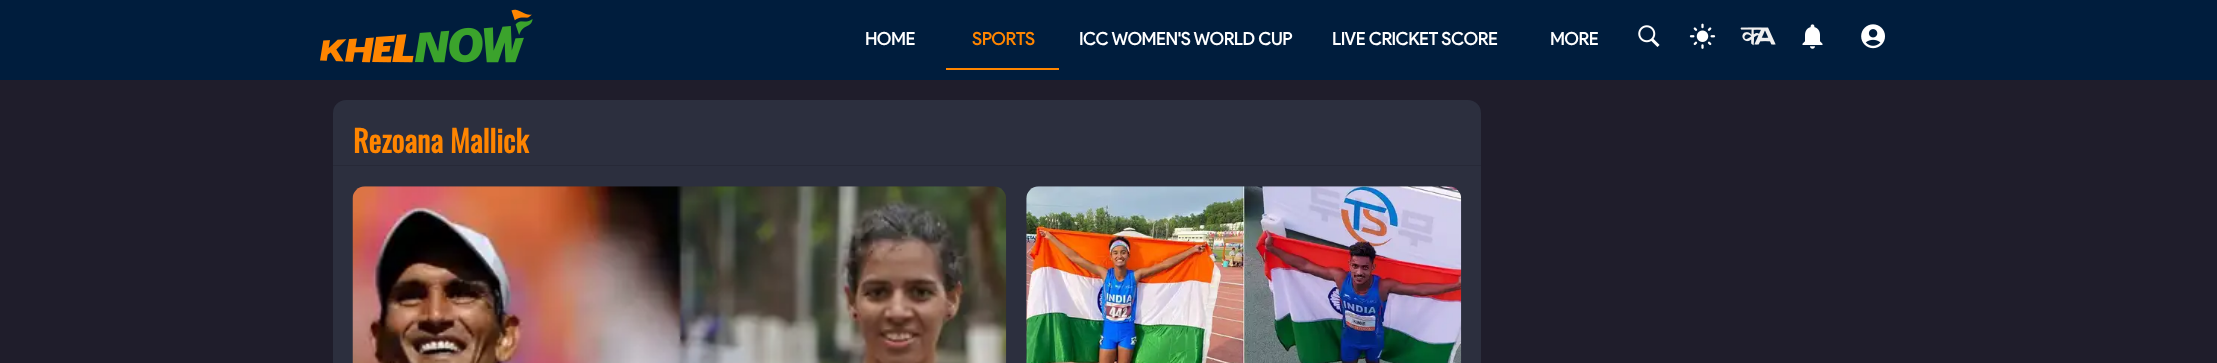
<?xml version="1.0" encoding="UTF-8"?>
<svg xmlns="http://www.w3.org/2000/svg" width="2217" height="363">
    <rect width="100%" height="100%" fill="#1F1D2B"/>
    <rect x="0" y="0" width="2217" height="80" fill="#001D3D"/>
    <image x="320" y="9" width="213" height="54" href="img_01.png"/>
    <text x="865" y="45" font-family="Product Sans" font-size="17.5" font-weight="700" fill="#FFFFFF">HOME</text>
    <text x="972" y="45" font-family="Product Sans" font-size="17.5" font-weight="700" fill="#FF8500">SPORTS</text>
    <rect x="946" y="68" width="113" height="2" fill="#FF8500"/>
    <text x="1079" y="45" font-family="Product Sans" font-size="17.5" font-weight="700" fill="#FFFFFF">ICC WOMEN'S WORLD CUP</text>
    <text x="1332" y="45" font-family="Product Sans" font-size="17.5" font-weight="700" fill="#FFFFFF">LIVE CRICKET SCORE</text>
    <text x="1550" y="45" font-family="Product Sans" font-size="17.5" font-weight="700" fill="#FFFFFF">MORE</text>
    <image x="1638" y="25" width="22" height="22" href="img_02.png"/>
    <image x="1689" y="23" width="27" height="26" href="img_03.png"/>
    <image x="1740" y="27" width="36" height="19" href="img_04.png"/>
    <image x="1802" y="24" width="21" height="25" href="img_05.png"/>
    <image x="1861" y="24" width="24" height="25" href="img_06.png"/>
    <rect x="333" y="100" width="1148" height="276" rx="13" fill="#2C2F3E"/>
    <text x="353" y="153" font-family="Oswald" font-size="30" font-weight="700" fill="#FF8500">Rezoana Mallick</text>
    <rect x="333" y="165" width="1148" height="1" fill="#272937"/>
    <image x="352" y="186" width="655" height="177" href="img_07.png"/>
    <image x="1026" y="186" width="436" height="177" href="img_08.png"/>
</svg>
